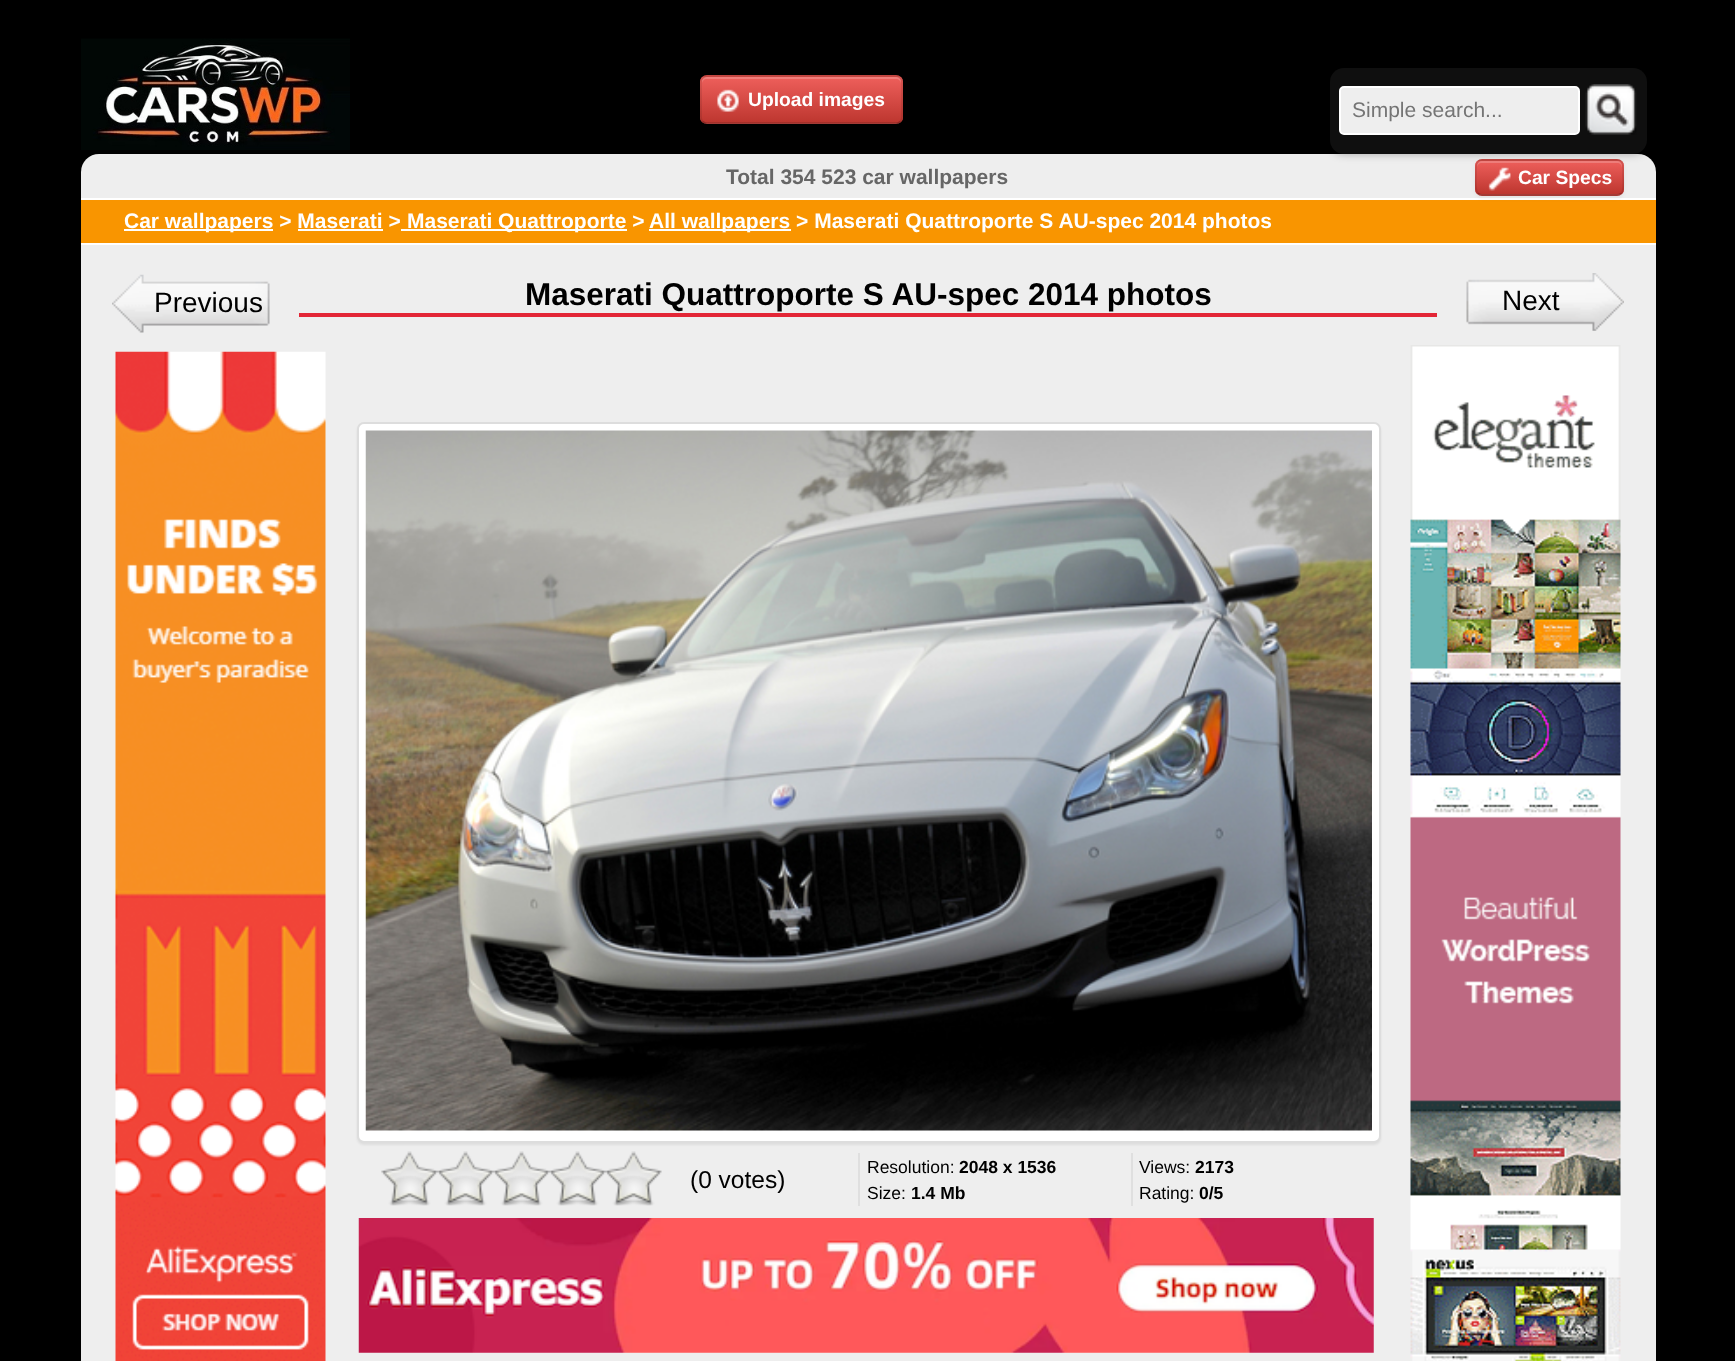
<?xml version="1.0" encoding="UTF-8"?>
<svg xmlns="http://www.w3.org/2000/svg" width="1735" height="1361">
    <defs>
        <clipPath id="clip1"><rect x="700" y="75" width="203" height="49" rx="7"/></clipPath>
        <linearGradient id="g1" gradientUnits="userSpaceOnUse" x1="802" y1="77" x2="802" y2="123"><stop offset="0" stop-color="#EE5F5B"/><stop offset="1" stop-color="#BD362F"/></linearGradient>
        <filter id="blur1" x="-50%" y="-200%" width="200%" height="500%"><feGaussianBlur stdDeviation="2"/></filter>
        <clipPath id="clip2"><rect x="1475" y="159" width="149" height="37" rx="7"/></clipPath>
        <linearGradient id="g2" gradientUnits="userSpaceOnUse" x1="1550" y1="161" x2="1550" y2="194"><stop offset="0" stop-color="#EE5F5B"/><stop offset="1" stop-color="#BD362F"/></linearGradient>
        <filter id="blur2" x="-50%" y="-200%" width="200%" height="500%"><feGaussianBlur stdDeviation="4.5"/></filter>
        <filter id="blur3" x="-50%" y="-200%" width="200%" height="500%"><feGaussianBlur stdDeviation="1"/></filter>
    </defs>
    <rect width="100%" height="100%" fill="#000000"/>
    <image x="81" y="38" width="269" height="112" href="img_01.png"/>
    <rect x="700" y="75" width="203" height="49" rx="7" fill="#DA4F49"/>
    <g clip-path="url(#clip1)">
        <rect x="700" y="77" width="203" height="46" fill="url(#g1)"/>
    </g>
    <path d="M 707 79 H 896 C 899 79 901 81 901 84 V 82 C 901 79 899 77 896 77 H 707 C 704 77 702 79 702 82 V 84 C 702 81 704 79 707 79 Z" fill="#FFFFFF" fill-opacity="0.2"/>
    <path d="M 900.5 121.5 C 899 122.5 897.5 123.5 896 123.5 H 707 C 705.5 123.5 704 122.5 702.5 121.5" fill="none" stroke="#000000" stroke-opacity="0.25" stroke-width="1.8"/>
    <path d="M 702.5 121.5 C 701.5 120.5 701 119 701 117 V 82 C 701 80.5 701.5 79 702.5 78 C 704 77 705.5 76 707 76 H 896 C 897.5 76 899 77 900.5 78 C 901.5 79 902 80.5 902 82 V 117 C 902 119 901.5 120.5 900.5 121.5" fill="none" stroke="#000000" stroke-opacity="0.1" stroke-width="1.8"/>
    <image x="717" y="89" width="22" height="23" href="img_02.png"/>
    <text x="748" y="106" font-family="Liberation Sans" font-size="19.25" font-weight="700" fill="#FFFFFF">Upload images</text>
    <rect x="81" y="154" width="1575" height="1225" rx="18" fill="#EEEEEE"/>
    <rect x="81" y="200" width="1575" height="43" fill="#F99500"/>
    <rect x="81" y="198" width="1575" height="2" fill="#FFFFFF"/>
    <rect x="1475" y="161" width="149" height="37" rx="7" fill="#000000" fill-opacity="0.05" filter="url(#blur1)"/>
    <rect x="1475" y="159" width="149" height="37" rx="7" fill="#DA4F49"/>
    <g clip-path="url(#clip2)">
        <rect x="1475" y="161" width="149" height="33" fill="url(#g2)"/>
    </g>
    <path d="M 1482 163 H 1617 C 1620 163 1622 165 1622 168 V 166 C 1622 163 1620 161 1617 161 H 1482 C 1479 161 1477 163 1477 166 V 168 C 1477 165 1479 163 1482 163 Z" fill="#FFFFFF" fill-opacity="0.2"/>
    <path d="M 1621.5 193.5 C 1620 194.5 1618.5 195 1617 195 H 1482 C 1480.5 195 1479 194.5 1478 193.5" fill="none" stroke="#000000" stroke-opacity="0.25" stroke-width="1.8"/>
    <path d="M 1478 193.5 C 1474.5 190 1476 178 1476 174 C 1476 169 1475 160 1482 160 H 1617 C 1624.5 160 1623 169 1623 174 C 1623 178 1624.5 190 1621.5 193.5" fill="none" stroke="#000000" stroke-opacity="0.1" stroke-width="1.8"/>
    <image x="1488" y="167" width="23" height="24" href="img_04.png"/>
    <rect x="1330" y="68" width="317" height="86" rx="14" fill="#000000" fill-opacity="0.3" filter="url(#blur2)"/>
    <rect x="1330" y="68" width="317" height="86" rx="14" fill="#0F0F0F"/>
    <rect x="1340" y="87" width="239" height="47" rx="4" fill="#EEEEEE" stroke="#FFFFFF" stroke-width="2"/>
    <text x="1352" y="117" font-family="Liberation Sans" font-size="21" fill="#757575">Simple search...</text>
    <image x="1585" y="84" width="52" height="51" href="img_03.png"/>
    <text x="726" y="184" font-family="Liberation Sans" font-size="21" font-weight="700" fill="#666666">Total 354 523 car wallpapers</text>
    <text x="1518" y="184" font-family="Liberation Sans" font-size="19.25" font-weight="700" fill="#FFFFFF">Car Specs</text>
    <rect x="81" y="243" width="1575" height="2" fill="#FFFFFF"/>
    <rect x="124" y="229" width="149" height="2" fill="#FFFFFF"/>
    <text x="124" y="228" font-family="Liberation Sans" font-size="21" font-weight="700" fill="#FFFFFF">Car wallpapers &gt; Maserati &gt;</text>
    <rect x="401" y="229" width="226" height="2" fill="#FFFFFF"/>
    <text x="407" y="228" font-family="Liberation Sans" font-size="21" font-weight="700" fill="#FFFFFF">Maserati Quattroporte &gt;</text>
    <rect x="649" y="229" width="142" height="2" fill="#FFFFFF"/>
    <text x="649" y="228" font-family="Liberation Sans" font-size="21" font-weight="700" fill="#FFFFFF">All wallpapers &gt; Maserati Quattroporte S AU-spec 2014 photos</text>
    <rect x="298" y="229" width="85" height="2" fill="#FFFFFF"/>
    <image x="112" y="274" width="158" height="59" href="img_05.png"/>
    <text x="154" y="312" font-family="Liberation Sans" font-size="28" fill="#000000">Previous</text>
    <rect x="299" y="313" width="1138" height="4" fill="#E32636"/>
    <text x="525" y="305" font-family="Liberation Sans" font-size="31.5" font-weight="700" fill="#000000">Maserati Quattroporte S AU-spec 2014 photos</text>
    <image x="1466" y="273" width="158" height="58" href="img_06.png"/>
    <text x="1502" y="310" font-family="Liberation Sans" font-size="28" fill="#000000">Next</text>
    <image x="115" y="351" width="211" height="1010" href="img_07.png"/>
    <rect x="357" y="424" width="1024" height="721" rx="7" fill="#000000" fill-opacity="0.07" filter="url(#blur3)"/>
    <rect x="358" y="423" width="1022" height="719" rx="6" fill="#FFFFFF" stroke="#DDDDDD" stroke-width="2"/>
    <image x="365" y="430" width="1007" height="701" href="img_08.png"/>
    <image x="381" y="1151" width="281" height="55" href="img_09.png"/>
    <text x="690" y="1188" font-family="Liberation Sans" font-size="24.5" fill="#000000">(0 votes)</text>
    <rect x="858" y="1153" width="2" height="53" fill="#DFDFDF"/>
    <text x="867" y="1173" font-family="Liberation Sans" font-size="17.5" fill="#000000">Resolution:</text>
    <text x="959" y="1173" font-family="Liberation Sans" font-size="17.5" font-weight="700" fill="#000000">2048 x 1536</text>
    <text x="867" y="1199" font-family="Liberation Sans" font-size="17.5" fill="#000000">Size:</text>
    <text x="911" y="1199" font-family="Liberation Sans" font-size="17.5" font-weight="700" fill="#000000">1.4 Mb</text>
    <rect x="1131" y="1153" width="2" height="53" fill="#DFDFDF"/>
    <text x="1139" y="1173" font-family="Liberation Sans" font-size="17.5" fill="#000000">Views:</text>
    <text x="1195" y="1173" font-family="Liberation Sans" font-size="17.5" font-weight="700" fill="#000000">2173</text>
    <text x="1139" y="1199" font-family="Liberation Sans" font-size="17.5" fill="#000000">Rating:</text>
    <text x="1199" y="1199" font-family="Liberation Sans" font-size="17.5" font-weight="700" fill="#000000">0/5</text>
    <image x="358" y="1218" width="1016" height="135" href="img_10.png"/>
    <image x="1410" y="345" width="211" height="1016" href="img_11.png"/>
</svg>
